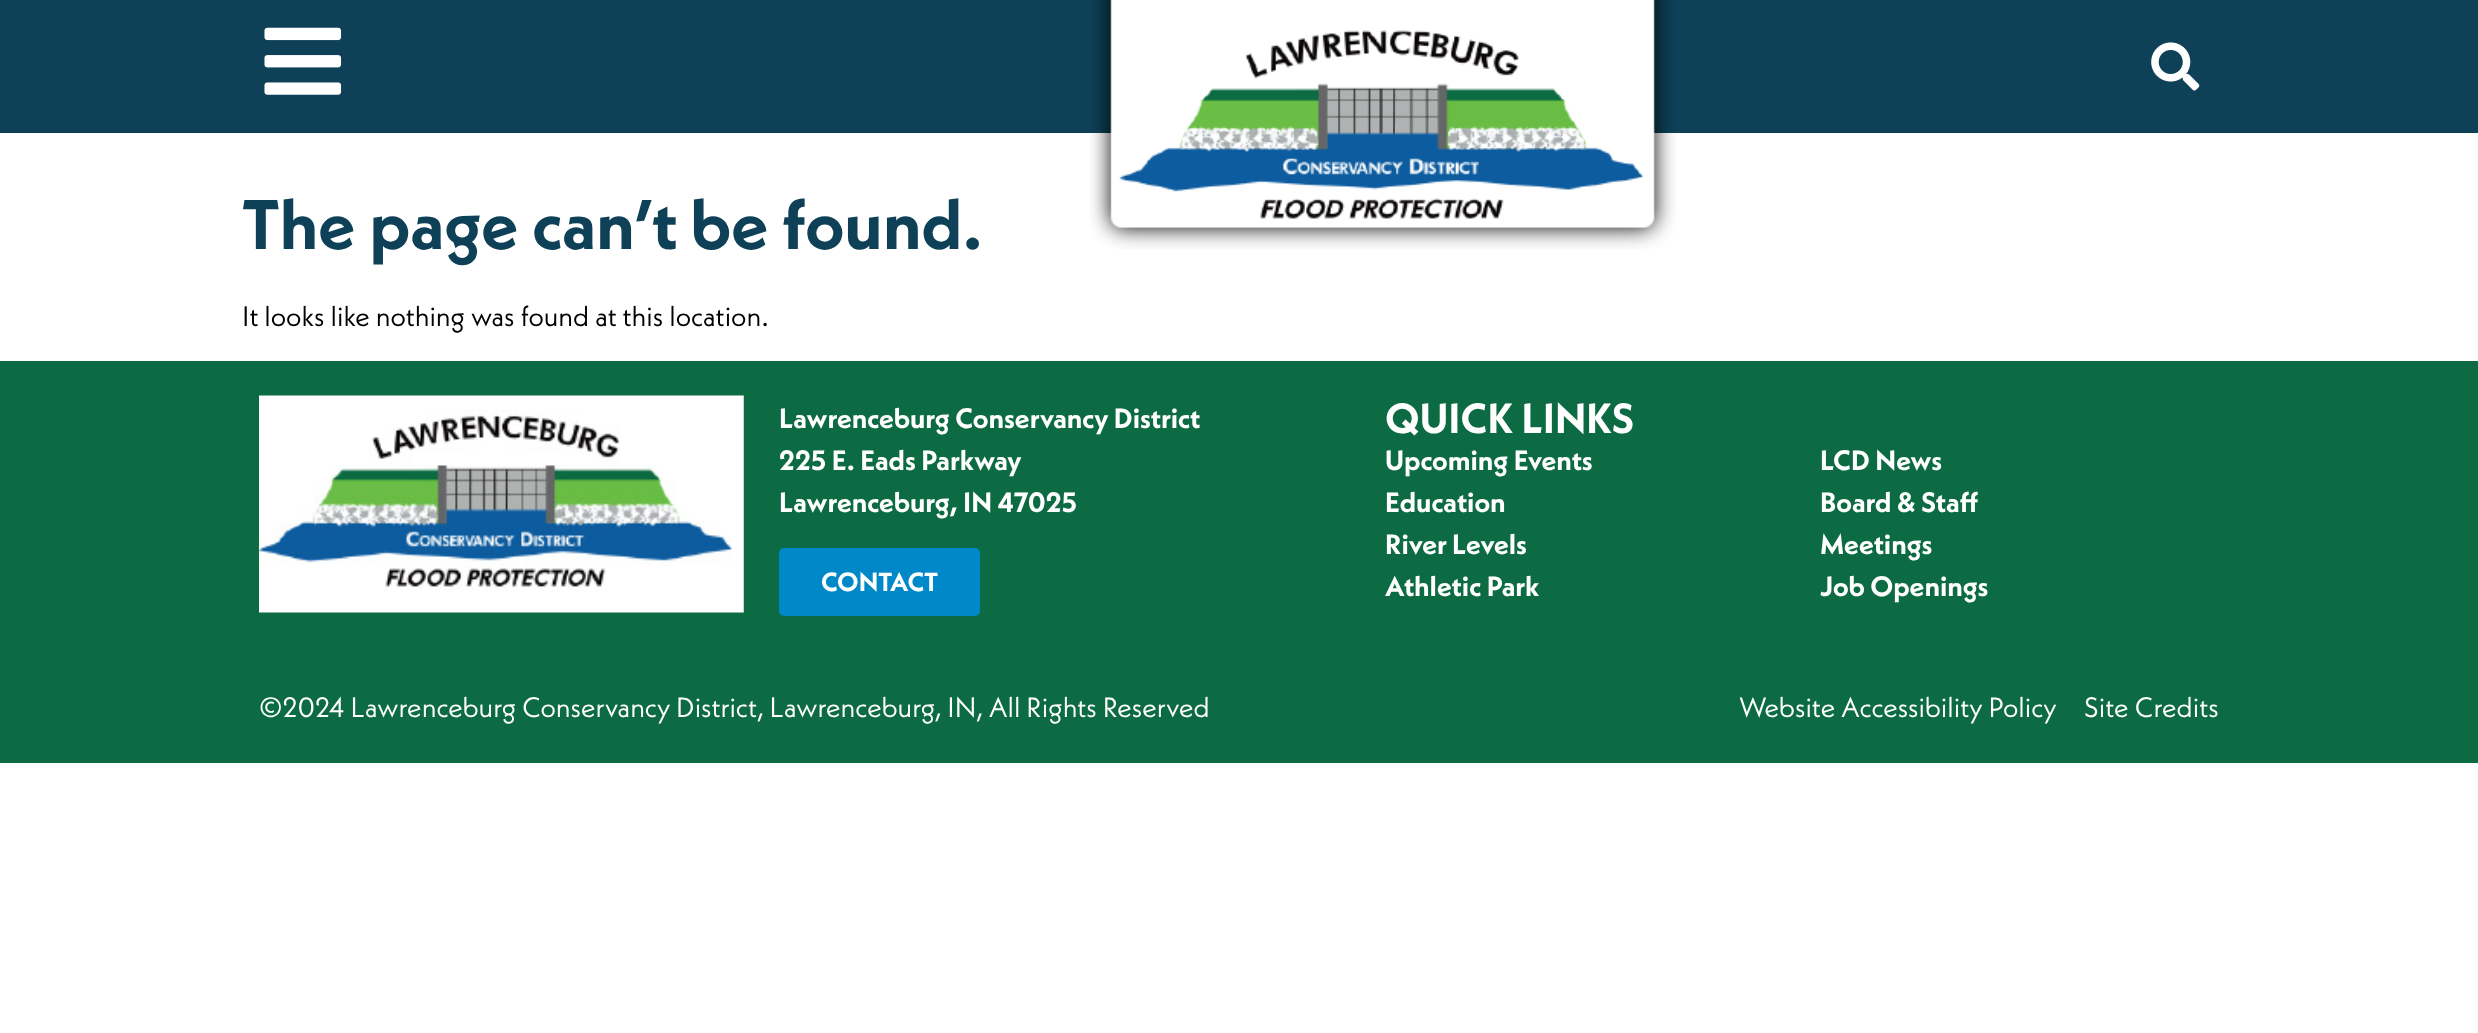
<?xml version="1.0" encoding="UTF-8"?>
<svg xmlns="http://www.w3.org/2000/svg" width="2478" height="1033">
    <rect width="100%" height="100%" fill="#FFFFFF"/>
    <rect x="0" y="0" width="2478" height="133" fill="#0E4057"/>
    <image x="264" y="27" width="78" height="68" href="img_01.png"/>
    <image x="2151" y="42" width="49" height="49" href="img_02.png"/>
    <image x="1090" y="0" width="586" height="249" href="img_03.png"/>
    <text x="242" y="249" font-family="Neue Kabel" font-size="70" font-weight="700" fill="#0E4057">The page can’t be found.</text>
    <text x="242" y="326" font-family="Neue Kabel" font-size="28" fill="#000000">It looks like nothing was found at this location.</text>
    <rect x="0" y="361" width="2478" height="402" fill="#0C6B42"/>
    <image x="259" y="395" width="485" height="218" href="img_04.png"/>
    <text font-family="Neue Kabel" font-size="28" font-weight="700" fill="#FFFFFF">
        <tspan x="779" y="428">Lawrenceburg Conservancy District</tspan>
        <tspan x="779" y="470">225 E. Eads Parkway</tspan>
        <tspan x="779" y="512">Lawrenceburg, IN 47025</tspan>
    </text>
    <rect x="779" y="548" width="201" height="68" rx="5" fill="#0088C8"/>
    <text x="821" y="591" font-family="Neue Kabel" font-size="26.25" font-weight="700" fill="#FFFFFF">CONTACT</text>
    <text x="1385" y="433" font-family="Neue Kabel" font-size="42" font-weight="700" fill="#FFFFFF">QUICK LINKS</text>
    <text font-family="Neue Kabel" font-size="28" font-weight="700" fill="#FFFFFF">
        <tspan x="1385" y="470">Upcoming Events</tspan>
        <tspan x="1385" y="512">Education</tspan>
        <tspan x="1385" y="554">River Levels</tspan>
        <tspan x="1385" y="596">Athletic Park</tspan>
    </text>
    <text font-family="Neue Kabel" font-size="28" font-weight="700" fill="#FFFFFF">
        <tspan x="1820" y="470">LCD News</tspan>
        <tspan x="1820" y="512">Board &amp; Staff</tspan>
        <tspan x="1820" y="554">Meetings</tspan>
        <tspan x="1820" y="596">Job Openings</tspan>
    </text>
    <text x="259" y="717" font-family="Neue Kabel" font-size="28" fill="#FFFFFF">©2024 Lawrenceburg Conservancy District, Lawrenceburg, IN, All Rights Reserved</text>
    <text x="1739" y="717" font-family="Neue Kabel" font-size="28" fill="#FFFFFF">Website Accessibility Policy</text>
    <text x="2084" y="717" font-family="Neue Kabel" font-size="28" fill="#FFFFFF">Site Credits</text>
</svg>
